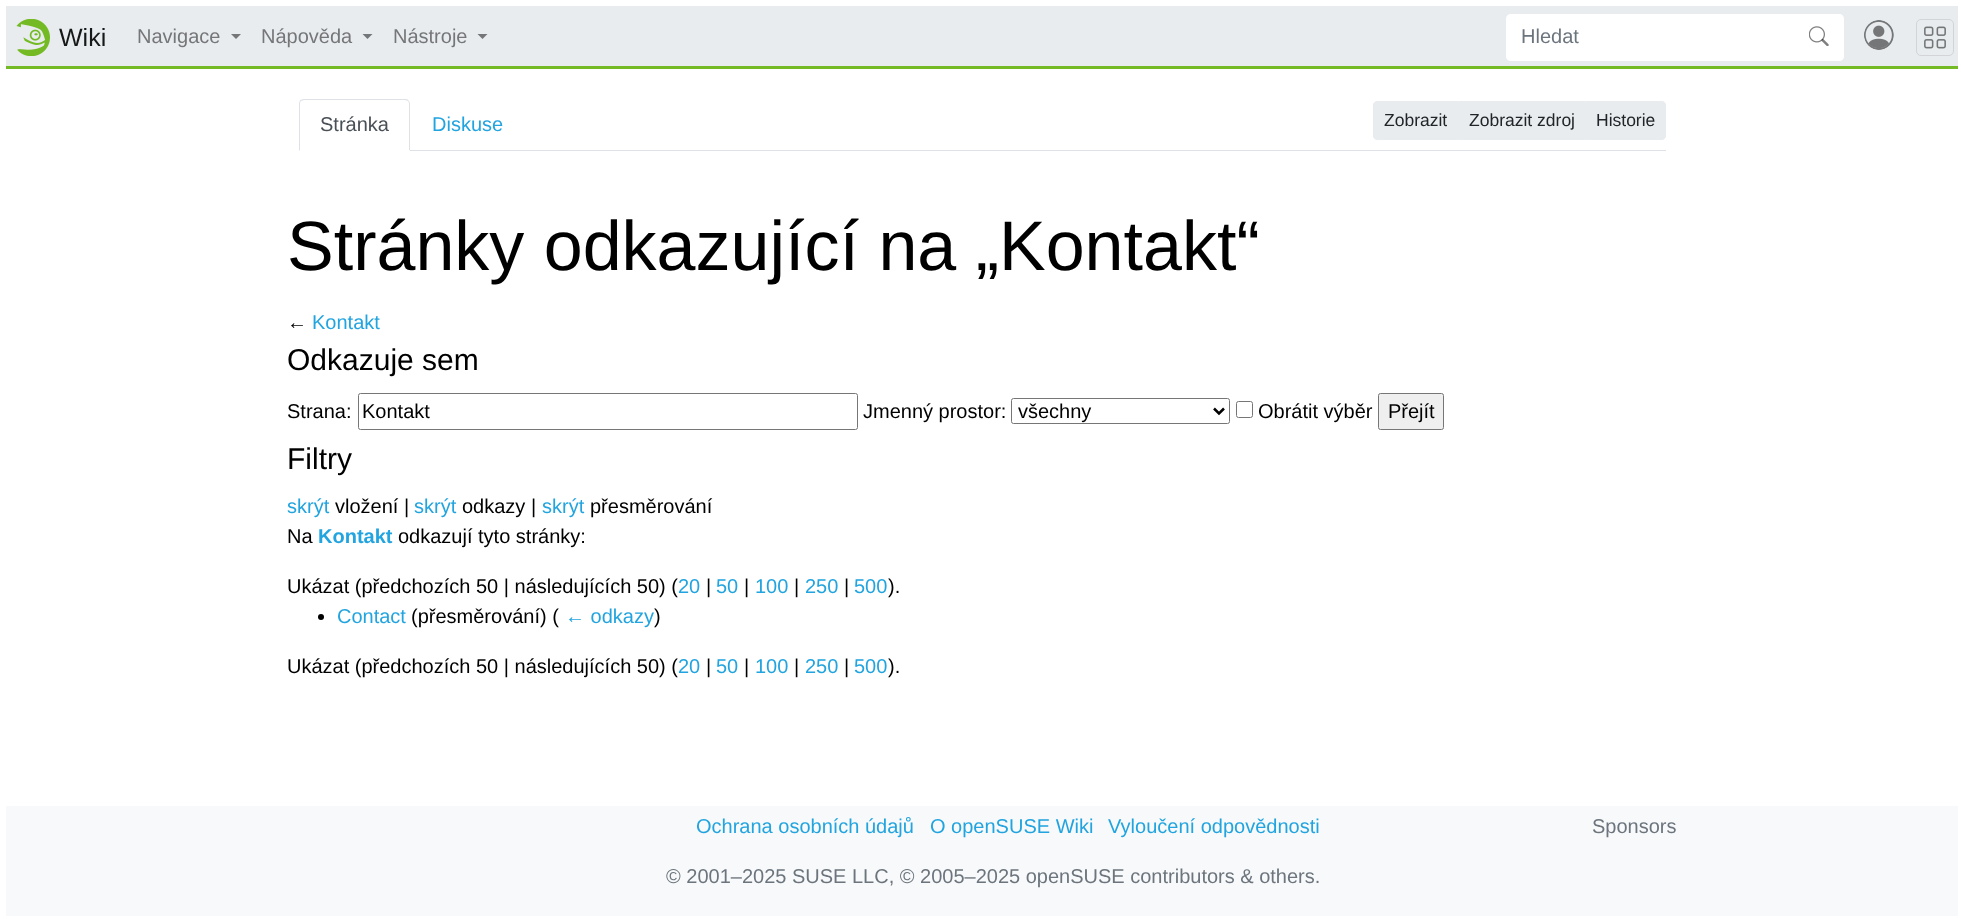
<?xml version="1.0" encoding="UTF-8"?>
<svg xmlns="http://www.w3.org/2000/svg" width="1961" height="919">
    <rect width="100%" height="100%" fill="#FFFFFF"/>
    <rect x="6" y="6" width="1952" height="60" fill="#E9ECEF"/>
    <rect x="6" y="66" width="1952" height="3" fill="#73BA25"/>
    <image x="16" y="19" width="34" height="37" href="img_01.png"/>
    <text x="59" y="46" font-family="Liberation Sans" font-size="25" fill="#171818">Wiki</text>
    <text x="137" y="43" font-family="Liberation Sans" font-size="20" fill="#757678">Navigace</text>
    <path d="M 231 34 H 241 L 236 39 Z" fill="#757678"/>
    <text x="261" y="43" font-family="Liberation Sans" font-size="20" fill="#757678">Nápověda</text>
    <path d="M 362.5 34 H 372.5 L 367.5 39 Z" fill="#757678"/>
    <text x="393" y="43" font-family="Liberation Sans" font-size="20" fill="#757678">Nástroje</text>
    <path d="M 477.5 34 H 487.5 L 482.5 39 Z" fill="#757678"/>
    <path d="M 1511 14 H 1795 V 61 H 1511 C 1508 61 1506 59 1506 56 V 19 C 1506 16 1508 14 1511 14 Z" fill="#FFFFFF"/>
    <text x="1521" y="43" font-family="Liberation Sans" font-size="20" fill="#6C757D">Hledat</text>
    <path d="M 1794 14 H 1839 C 1842 14 1844 16 1844 19 V 56 C 1844 59 1842 61 1839 61 H 1794 Z" fill="#FFFFFF"/>
    <image x="1809" y="26" width="20" height="20" href="img_02.png"/>
    <image x="1864" y="20" width="30" height="30" href="img_03.png"/>
    <rect x="1916.5" y="19.5" width="37" height="36" rx="4.5" fill="none" stroke="#D2D4D7"/>
    <image x="1924" y="26" width="22" height="23" href="img_04.png"/>
    <rect x="410" y="150" width="1256" height="1" fill="#DEE2E6"/>
    <path d="M 304 99 C 302 99 301 100 300 100 L 301 101 L 304 100 H 405 L 408 101 V 100 C 408 99 406 99 405 99 Z" fill="#DEE2E6"/>
    <path d="M 408 100 C 409 101 410 102 410 104 V 151 L 409 150 V 103 L 408 101 Z" fill="#DEE2E6"/>
    <path d="M 410 151 H 299 L 300 150 H 409 Z" fill="#FFFFFF"/>
    <path d="M 300 100 C 300 101 299 102 299 104 V 151 L 300 150 V 104 C 300 103 300 102 301 101 Z" fill="#DEE2E6"/>
    <text x="320" y="131" font-family="Liberation Sans" font-size="20" fill="#495057">Stránka</text>
    <text x="432" y="131" font-family="Liberation Sans" font-size="20" fill="#21A4DF">Diskuse</text>
    <path d="M 1377 101.5 H 1458.5 V 139.5 H 1377 C 1375 139.5 1373.5 138 1373.5 136 V 105 C 1373.5 103 1375 101.5 1377 101.5 Z" fill="#E9ECEF" stroke="#E9ECEF"/>
    <text x="1384" y="126" font-family="Liberation Sans" font-size="17.5" fill="#212529">Zobrazit</text>
    <rect x="1459" y="101" width="126" height="39" fill="#E9ECEF"/>
    <text x="1469" y="126" font-family="Liberation Sans" font-size="17.5" fill="#212529">Zobrazit zdroj</text>
    <path d="M 1585.5 101.5 H 1662 C 1664 101.5 1665.5 103 1665.5 105 V 136 C 1665.5 138 1664 139.5 1662 139.5 H 1585.5 Z" fill="#E9ECEF" stroke="#E9ECEF"/>
    <text x="1596" y="126" font-family="Liberation Sans" font-size="17.5" fill="#212529">Historie</text>
    <text x="287" y="270" font-family="Liberation Sans" font-size="70" fill="#000000">Stránky odkazující na „Kontakt“</text>
    <text x="287" y="329" font-family="Liberation Sans" font-size="20" fill="#000000">←</text>
    <text x="312" y="329" font-family="Liberation Sans" font-size="20" fill="#21A4DF">Kontakt</text>
    <text x="287" y="370" font-family="Liberation Sans" font-size="30" fill="#000000">Odkazuje sem</text>
    <text x="287" y="418" font-family="Liberation Sans" font-size="20" fill="#000000">Strana:</text>
    <rect x="358.5" y="393.5" width="499" height="36" rx="2" fill="none" stroke="#767676"/>
    <text x="362" y="418" font-family="Liberation Sans" font-size="20" fill="#000000">Kontakt</text>
    <text x="863" y="418" font-family="Liberation Sans" font-size="20" fill="#000000">Jmenný prostor:</text>
    <rect x="1011.5" y="398.5" width="218" height="25" rx="2" fill="none" stroke="#767676"/>
    <path d="M 1214 408.5 L 1219 413.5 L 1224 408.5" fill="none" stroke="#000000" stroke-width="2.5"/>
    <text x="1018" y="418" font-family="Liberation Sans" font-size="20" fill="#000000">všechny</text>
    <rect x="1236.5" y="401.5" width="16" height="16" rx="2" fill="none" stroke="#767676"/>
    <text x="1258" y="418" font-family="Liberation Sans" font-size="20" fill="#000000">Obrátit výběr</text>
    <rect x="1378.5" y="393.5" width="65" height="36" rx="2" fill="#EFEFEF" stroke="#767676"/>
    <text x="1388" y="418" font-family="Liberation Sans" font-size="20" fill="#000000">Přejít</text>
    <text x="287" y="469" font-family="Liberation Sans" font-size="30" fill="#000000">Filtry</text>
    <text x="287" y="513" font-family="Liberation Sans" font-size="20" fill="#21A4DF">skrýt</text>
    <text x="335" y="513" font-family="Liberation Sans" font-size="20" fill="#000000">vložení |</text>
    <text x="414" y="513" font-family="Liberation Sans" font-size="20" fill="#21A4DF">skrýt</text>
    <text x="462" y="513" font-family="Liberation Sans" font-size="20" fill="#000000">odkazy |</text>
    <text x="542" y="513" font-family="Liberation Sans" font-size="20" fill="#21A4DF">skrýt</text>
    <text x="590" y="513" font-family="Liberation Sans" font-size="20" fill="#000000">přesměrování</text>
    <text x="287" y="543" font-family="Liberation Sans" font-size="20" fill="#000000">Na</text>
    <text x="318" y="543" font-family="Liberation Sans" font-size="20" font-weight="700" fill="#21A4DF">Kontakt</text>
    <text x="398" y="543" font-family="Liberation Sans" font-size="20" fill="#000000">odkazují tyto stránky:</text>
    <text x="287" y="593" font-family="Liberation Sans" font-size="20" fill="#000000">Ukázat (předchozích 50 | následujících 50) (</text>
    <text x="678" y="593" font-family="Liberation Sans" font-size="20" fill="#21A4DF">20</text>
    <text x="706" y="593" font-family="Liberation Sans" font-size="20" fill="#000000">|</text>
    <text x="716" y="593" font-family="Liberation Sans" font-size="20" fill="#21A4DF">50</text>
    <text x="744" y="593" font-family="Liberation Sans" font-size="20" fill="#000000">|</text>
    <text x="755" y="593" font-family="Liberation Sans" font-size="20" fill="#21A4DF">100</text>
    <text x="794" y="593" font-family="Liberation Sans" font-size="20" fill="#000000">|</text>
    <text x="805" y="593" font-family="Liberation Sans" font-size="20" fill="#21A4DF">250</text>
    <text x="844" y="593" font-family="Liberation Sans" font-size="20" fill="#000000">|</text>
    <text x="854" y="593" font-family="Liberation Sans" font-size="20" fill="#21A4DF">500</text>
    <text x="888" y="593" font-family="Liberation Sans" font-size="20" fill="#000000">).</text>
    <circle cx="321" cy="617" r="3" fill="#000000"/>
    <text x="337" y="623" font-family="Liberation Sans" font-size="20" fill="#21A4DF">Contact</text>
    <text x="411" y="623" font-family="Liberation Sans" font-size="20" fill="#000000">(přesměrování)  (</text>
    <text x="565" y="623" font-family="Liberation Sans" font-size="20" fill="#21A4DF">← odkazy</text>
    <text x="654" y="623" font-family="Liberation Sans" font-size="20" fill="#000000">)</text>
    <text x="287" y="673" font-family="Liberation Sans" font-size="20" fill="#000000">Ukázat (předchozích 50 | následujících 50) (</text>
    <text x="678" y="673" font-family="Liberation Sans" font-size="20" fill="#21A4DF">20</text>
    <text x="706" y="673" font-family="Liberation Sans" font-size="20" fill="#000000">|</text>
    <text x="716" y="673" font-family="Liberation Sans" font-size="20" fill="#21A4DF">50</text>
    <text x="744" y="673" font-family="Liberation Sans" font-size="20" fill="#000000">|</text>
    <text x="755" y="673" font-family="Liberation Sans" font-size="20" fill="#21A4DF">100</text>
    <text x="794" y="673" font-family="Liberation Sans" font-size="20" fill="#000000">|</text>
    <text x="805" y="673" font-family="Liberation Sans" font-size="20" fill="#21A4DF">250</text>
    <text x="844" y="673" font-family="Liberation Sans" font-size="20" fill="#000000">|</text>
    <text x="854" y="673" font-family="Liberation Sans" font-size="20" fill="#21A4DF">500</text>
    <text x="888" y="673" font-family="Liberation Sans" font-size="20" fill="#000000">).</text>
    <rect x="6" y="806" width="1952" height="110" fill="#F8F9FA"/>
    <text x="696" y="833" font-family="Liberation Sans" font-size="20" fill="#21A4DF">Ochrana osobních údajů</text>
    <text x="930" y="833" font-family="Liberation Sans" font-size="20" fill="#21A4DF">O openSUSE Wiki</text>
    <text x="1108" y="833" font-family="Liberation Sans" font-size="20" fill="#21A4DF">Vyloučení odpovědnosti</text>
    <text x="666" y="883" font-family="Liberation Sans" font-size="20" fill="#6C757D">© 2001–2025 SUSE LLC, © 2005–2025 openSUSE contributors &amp; others.</text>
    <text x="1592" y="833" font-family="Liberation Sans" font-size="20" fill="#6C757D">Sponsors</text>
</svg>
